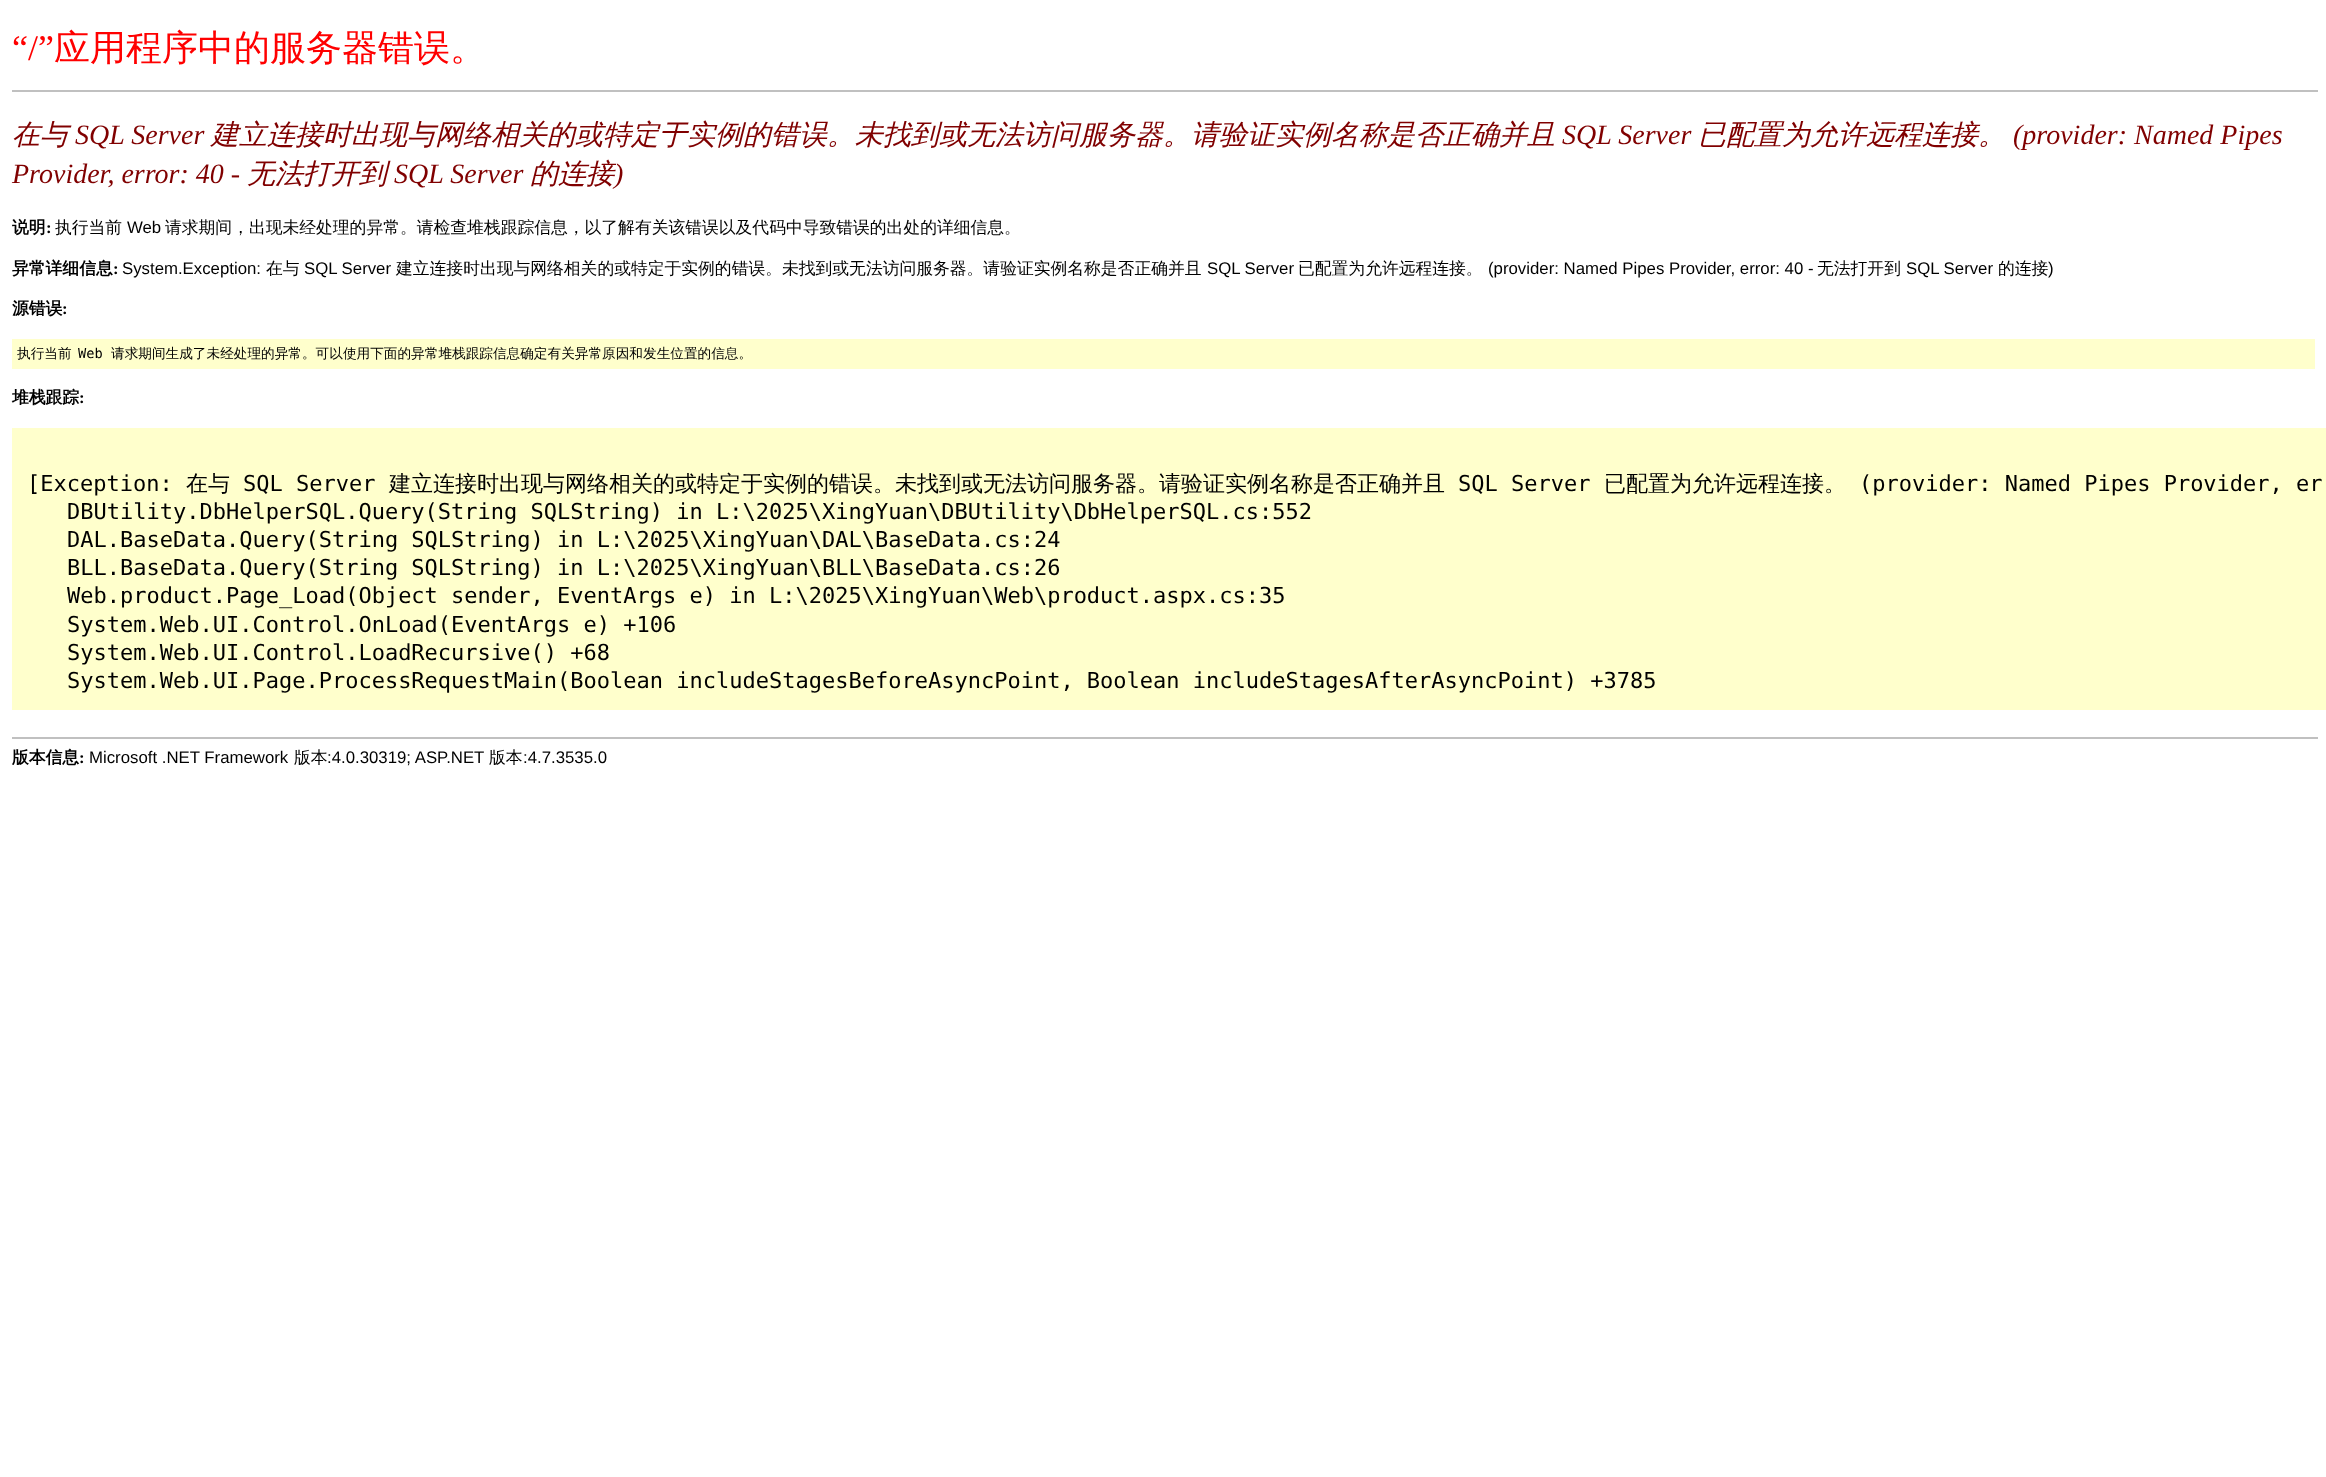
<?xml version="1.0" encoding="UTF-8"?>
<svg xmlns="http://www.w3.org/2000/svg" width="2326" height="1477">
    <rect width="100%" height="100%" fill="#FFFFFF"/>
    <text x="12" y="60" font-family="Liberation Serif" font-size="36" fill="#FF0000">“/”</text>
    <text x="54" y="60" font-family="WenQuanYi Zen Hei" font-size="36" font-weight="500" fill="#FF0000">应用程序中的服务器错误。</text>
    <rect x="12" y="90" width="2306" height="2" fill="#C0C0C0"/>
    <text x="12" y="144" font-family="WenQuanYi Zen Hei" font-size="28" font-weight="500" font-style="italic" fill="#800000">在与</text>
    <text x="75" y="144" font-family="Liberation Serif" font-size="28" font-style="italic" fill="#800000">SQL Server</text>
    <text x="211" y="144" font-family="WenQuanYi Zen Hei" font-size="28" font-weight="500" font-style="italic" fill="#800000">建立连接时出现与网络相关的或特定于实例的错误。未找到或无法访问服务器。请验证实例名称是否正确并且</text>
    <text x="1562" y="144" font-family="Liberation Serif" font-size="28" font-style="italic" fill="#800000">SQL Server</text>
    <text x="1698" y="144" font-family="WenQuanYi Zen Hei" font-size="28" font-weight="500" font-style="italic" fill="#800000">已配置为允许远程连接。</text>
    <text x="2013" y="144" font-family="Liberation Serif" font-size="28" font-style="italic" fill="#800000">(provider: Named Pipes</text>
    <text x="12" y="183" font-family="Liberation Serif" font-size="28" font-style="italic" fill="#800000">Provider, error: 40 -</text>
    <text x="247" y="183" font-family="WenQuanYi Zen Hei" font-size="28" font-weight="500" font-style="italic" fill="#800000">无法打开到</text>
    <text x="394" y="183" font-family="Liberation Serif" font-size="28" font-style="italic" fill="#800000">SQL Server</text>
    <text x="530" y="183" font-family="WenQuanYi Zen Hei" font-size="28" font-weight="500" font-style="italic" fill="#800000">的连接</text>
    <text x="614" y="183" font-family="Liberation Serif" font-size="28" font-style="italic" fill="#800000">)</text>
    <text x="12" y="233" font-family="WenQuanYi Zen Hei" font-size="16.8" font-weight="700" fill="#000000">说明</text>
    <text x="46" y="233" font-family="Liberation Serif" font-size="16.8" font-weight="700" fill="#000000">:</text>
    <text x="55" y="233" font-family="WenQuanYi Zen Hei" font-size="16.8" font-weight="500" fill="#000000">执行当前</text>
    <text x="127" y="233" font-family="Liberation Sans" font-size="16.8" fill="#000000">Web</text>
    <text x="165" y="233" font-family="WenQuanYi Zen Hei" font-size="16.8" font-weight="500" fill="#000000">请求期间，出现未经处理的异常。请检查堆栈跟踪信息，以了解有关该错误以及代码中导致错误的出处的详细信息。</text>
    <text x="12" y="274" font-family="WenQuanYi Zen Hei" font-size="16.8" font-weight="700" fill="#000000">异常详细信息</text>
    <text x="113" y="274" font-family="Liberation Serif" font-size="16.8" font-weight="700" fill="#000000">:</text>
    <text x="122" y="274" font-family="Liberation Sans" font-size="16.8" fill="#000000">System.Exception:</text>
    <text x="266" y="274" font-family="WenQuanYi Zen Hei" font-size="16.8" font-weight="500" fill="#000000">在与</text>
    <text x="304" y="274" font-family="Liberation Sans" font-size="16.8" fill="#000000">SQL Server</text>
    <text x="396" y="274" font-family="WenQuanYi Zen Hei" font-size="16.8" font-weight="500" fill="#000000">建立连接时出现与网络相关的或特定于实例的错误。未找到或无法访问服务器。请验证实例名称是否正确并且</text>
    <text x="1207" y="274" font-family="Liberation Sans" font-size="16.8" fill="#000000">SQL Server</text>
    <text x="1298" y="274" font-family="WenQuanYi Zen Hei" font-size="16.8" font-weight="500" fill="#000000">已配置为允许远程连接。</text>
    <text x="1488" y="274" font-family="Liberation Sans" font-size="16.8" fill="#000000">(provider: Named Pipes Provider, error: 40 -</text>
    <text x="1817" y="274" font-family="WenQuanYi Zen Hei" font-size="16.8" font-weight="500" fill="#000000">无法打开到</text>
    <text x="1906" y="274" font-family="Liberation Sans" font-size="16.8" fill="#000000">SQL Server</text>
    <text x="1998" y="274" font-family="WenQuanYi Zen Hei" font-size="16.8" font-weight="500" fill="#000000">的连接</text>
    <text x="2048" y="274" font-family="Liberation Sans" font-size="16.8" fill="#000000">)</text>
    <text x="12" y="314" font-family="WenQuanYi Zen Hei" font-size="16.8" font-weight="700" fill="#000000">源错误</text>
    <text x="62" y="314" font-family="Liberation Serif" font-size="16.8" font-weight="700" fill="#000000">:</text>
    <rect x="12" y="339" width="2303" height="30" fill="#FFFFCC"/>
    <text x="17" y="358" font-family="WenQuanYi Zen Hei" font-size="13.65" font-weight="500" fill="#000000">执行当前</text>
    <text x="78" y="358" font-family="DejaVu Sans Mono" font-size="13.65" fill="#000000">Web</text>
    <text x="111" y="358" font-family="WenQuanYi Zen Hei" font-size="13.65" font-weight="500" fill="#000000">请求期间生成了未经处理的异常。可以使用下面的异常堆栈跟踪信息确定有关异常原因和发生位置的信息。</text>
    <text x="12" y="403" font-family="WenQuanYi Zen Hei" font-size="16.8" font-weight="700" fill="#000000">堆栈跟踪</text>
    <text x="79" y="403" font-family="Liberation Serif" font-size="16.8" font-weight="700" fill="#000000">:</text>
    <rect x="12" y="428" width="2314" height="282" fill="#FFFFCC"/>
    <text x="27" y="491" font-family="DejaVu Sans Mono" font-size="22" fill="#000000">[Exception:</text>
    <text x="186" y="491" font-family="WenQuanYi Zen Hei" font-size="22" font-weight="500" fill="#000000">在与</text>
    <text x="243" y="491" font-family="DejaVu Sans Mono" font-size="22" fill="#000000">SQL Server</text>
    <text x="389" y="491" font-family="WenQuanYi Zen Hei" font-size="22" font-weight="500" fill="#000000">建立连接时出现与网络相关的或特定于实例的错误。未找到或无法访问服务器。请验证实例名称是否正确并且</text>
    <text x="1458" y="491" font-family="DejaVu Sans Mono" font-size="22" fill="#000000">SQL Server</text>
    <text x="1604" y="491" font-family="WenQuanYi Zen Hei" font-size="22" font-weight="500" fill="#000000">已配置为允许远程连接。</text>
    <text x="1859" y="491" font-family="DejaVu Sans Mono" font-size="22" fill="#000000">(provider: Named Pipes Provider, er</text>
    <text font-family="DejaVu Sans Mono" font-size="22" fill="#000000">
        <tspan x="67" y="519">DBUtility.DbHelperSQL.Query(String SQLString) in L:\2025\XingYuan\DBUtility\DbHelperSQL.cs:552</tspan>
        <tspan x="67" y="547">DAL.BaseData.Query(String SQLString) in L:\2025\XingYuan\DAL\BaseData.cs:24</tspan>
        <tspan x="67" y="575">BLL.BaseData.Query(String SQLString) in L:\2025\XingYuan\BLL\BaseData.cs:26</tspan>
        <tspan x="67" y="603">Web.product.Page_Load(Object sender, EventArgs e) in L:\2025\XingYuan\Web\product.aspx.cs:35</tspan>
        <tspan x="67" y="632">System.Web.UI.Control.OnLoad(EventArgs e) +106</tspan>
        <tspan x="67" y="660">System.Web.UI.Control.LoadRecursive() +68</tspan>
        <tspan x="67" y="688">System.Web.UI.Page.ProcessRequestMain(Boolean includeStagesBeforeAsyncPoint, Boolean includeStagesAfterAsyncPoint) +3785</tspan>
    </text>
    <rect x="12" y="737" width="2306" height="2" fill="#C0C0C0"/>
    <text x="12" y="763" font-family="WenQuanYi Zen Hei" font-size="16.8" font-weight="700" fill="#000000">版本信息</text>
    <text x="79" y="763" font-family="Liberation Serif" font-size="16.8" font-weight="700" fill="#000000">:</text>
    <text x="89" y="763" font-family="Liberation Sans" font-size="16.8" fill="#000000">Microsoft .NET Framework</text>
    <text x="294" y="763" font-family="WenQuanYi Zen Hei" font-size="16.8" font-weight="500" fill="#000000">版本</text>
    <text x="327" y="763" font-family="Liberation Sans" font-size="16.8" fill="#000000">:4.0.30319; ASP.NET</text>
    <text x="489" y="763" font-family="WenQuanYi Zen Hei" font-size="16.8" font-weight="500" fill="#000000">版本</text>
    <text x="523" y="763" font-family="Liberation Sans" font-size="16.8" fill="#000000">:4.7.3535.0</text>
</svg>
